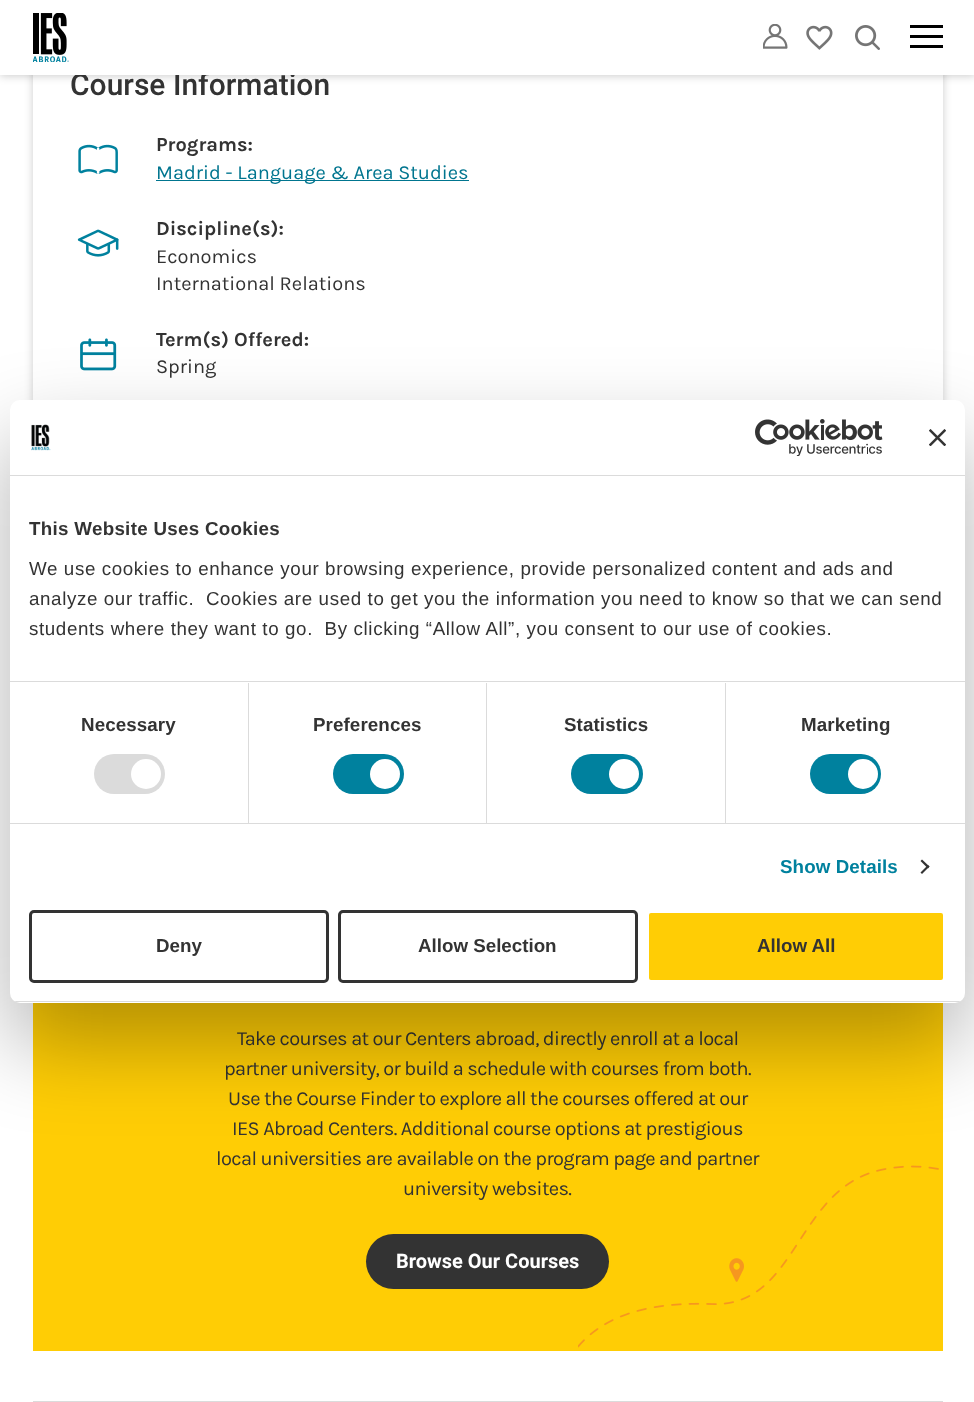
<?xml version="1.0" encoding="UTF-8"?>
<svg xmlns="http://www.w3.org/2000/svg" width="974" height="1402">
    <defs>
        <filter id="blur1" x="-50%" y="-200%" width="200%" height="500%"><feGaussianBlur stdDeviation="4"/></filter>
        <clipPath id="clip1"><path d="M 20 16 H 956 V 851 H 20 Z M 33 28 H 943 V 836 H 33 Z" clip-rule="evenodd"/></clipPath>
        <filter id="blur2" x="-50%" y="-200%" width="200%" height="500%"><feGaussianBlur stdDeviation="42.5"/></filter>
        <clipPath id="clip2"><rect x="10" y="400" width="955" height="603" rx="10"/></clipPath>
    </defs>
    <rect width="100%" height="100%" fill="#FFFFFF"/>
    <rect x="0" y="1" width="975" height="75" fill="#000000" fill-opacity="0.2" filter="url(#blur1)"/>
    <g clip-path="url(#clip1)">
        <rect x="33" y="29" width="910" height="809" fill="#000000" fill-opacity="0.2" filter="url(#blur1)"/>
    </g>
    <text x="70" y="95" font-family="Roboto" font-size="30" font-weight="500" fill="#333333">Course Information</text>
    <rect x="0" y="0" width="974" height="75" fill="#FFFFFF"/>
    <image x="33" y="13" width="36" height="49" href="img_01.png"/>
    <image x="763" y="24" width="25" height="25" href="img_02.png"/>
    <image x="806" y="25" width="27" height="25" href="img_03.png"/>
    <image x="855" y="25" width="25" height="25" href="img_04.png"/>
    <rect x="910" y="25" width="33" height="3" fill="#000000"/>
    <rect x="910" y="35" width="33" height="3" fill="#000000"/>
    <rect x="910" y="45" width="33" height="3" fill="#000000"/>
    <image x="78" y="144" width="40" height="30" href="img_05.png"/>
    <text x="156" y="151" font-family="Karla" font-size="20" font-weight="700" fill="#333333">Programs:</text>
    <rect x="156" y="180" width="313" height="1" fill="#00758F"/>
    <text x="156" y="179" font-family="Karla" font-size="20" fill="#00758F">Madrid - Language &amp; Area Studies</text>
    <image x="77" y="229" width="42" height="28" href="img_06.png"/>
    <text x="156" y="235" font-family="Karla" font-size="20" font-weight="700" fill="#333333">Discipline(s):</text>
    <text font-family="Karla" font-size="20" fill="#333333">
        <tspan x="156" y="263">Economics</tspan>
        <tspan x="156" y="290">International Relations</tspan>
    </text>
    <image x="80" y="338" width="37" height="33" href="img_07.png"/>
    <text x="156" y="346" font-family="Karla" font-size="20" font-weight="700" fill="#333333">Term(s) Offered:</text>
    <text x="156" y="373" font-family="Karla" font-size="20" fill="#333333">Spring</text>
    <rect x="33" y="1003" width="910" height="348" fill="#FFCD05"/>
    <text x="237" y="1045" font-family="Karla" font-size="20" letter-spacing="-0.62" fill="#333333">Take courses at our Centers abroad, directly enroll at a local</text>
    <text x="224" y="1075" font-family="Karla" font-size="20" letter-spacing="-0.62" fill="#333333">partner university, or build a schedule with courses from both.</text>
    <text x="228" y="1105" font-family="Karla" font-size="20" letter-spacing="-0.62" fill="#333333">Use the Course Finder to explore all the courses offered at our</text>
    <text x="232" y="1135" font-family="Karla" font-size="20" letter-spacing="-0.62" fill="#333333">IES Abroad Centers. Additional course options at prestigious</text>
    <image x="578" y="1165" width="361" height="183" href="img_08.png"/>
    <text x="216" y="1165" font-family="Karla" font-size="20" letter-spacing="-0.62" fill="#333333">local universities are available on the program page and partner</text>
    <text x="403" y="1195" font-family="Karla" font-size="20" letter-spacing="-0.62" fill="#333333">university websites.</text>
    <rect x="366" y="1234" width="243" height="55" rx="27.5" fill="#333333"/>
    <text x="396" y="1268" font-family="Roboto" font-size="20" font-weight="700" fill="#FFFFFF">Browse Our Courses</text>
    <rect x="33" y="1401" width="910" height="1" fill="#DBDBDB"/>
    <rect x="10" y="440" width="955" height="603" rx="10" fill="#000000" fill-opacity="0.3" filter="url(#blur2)"/>
    <rect x="10" y="400" width="955" height="603" rx="10" fill="#FFFFFF"/>
    <rect x="10" y="475" width="955" height="1" fill="#DBDBDB"/>
    <image x="31" y="424" width="20" height="27" href="img_09.png"/>
    <image x="755" y="419" width="128" height="37" href="img_10.png"/>
    <image x="929" y="429" width="17" height="17" href="img_11.png"/>
    <rect x="10" y="681" width="955" height="1" fill="#DBDBDB"/>
    <text x="29" y="535" font-family="Liberation Sans" font-size="18.75" font-weight="700" letter-spacing="0.3" fill="#333333">This Website Uses Cookies</text>
    <text font-family="Liberation Sans" font-size="18.75" letter-spacing="0.62" fill="#333333" xml:space="preserve"><tspan x="29" y="575">We use cookies to enhance your browsing experience, provide personalized content and ads and</tspan><tspan x="29" y="605">analyze our traffic.  Cookies are used to get you the information you need to know so that we can send</tspan><tspan x="29" y="635">students where they want to go.  By clicking “Allow All”, you consent to our use of cookies.</tspan></text>
    <rect x="10" y="823" width="955" height="1" fill="#DBDBDB"/>
    <rect x="248" y="683" width="1" height="140" fill="#DBDBDB"/>
    <text x="81" y="731" font-family="Liberation Sans" font-size="18.75" font-weight="700" letter-spacing="0.1" fill="#333333">Necessary</text>
    <rect x="94" y="754" width="71" height="40" rx="20" fill="#DBDBDB"/>
    <circle cx="146" cy="774" r="15" fill="#FFFFFF"/>
    <rect x="486" y="683" width="1" height="140" fill="#DBDBDB"/>
    <text x="313" y="731" font-family="Liberation Sans" font-size="18.75" font-weight="700" letter-spacing="0.1" fill="#333333">Preferences</text>
    <rect x="333" y="754" width="71" height="40" rx="20" fill="#00819E"/>
    <circle cx="385" cy="774" r="15" fill="#FFFFFF"/>
    <rect x="725" y="683" width="1" height="140" fill="#DBDBDB"/>
    <text x="564" y="731" font-family="Liberation Sans" font-size="18.75" font-weight="700" letter-spacing="0.1" fill="#333333">Statistics</text>
    <rect x="571" y="754" width="72" height="40" rx="20" fill="#00819E"/>
    <circle cx="624" cy="774" r="15" fill="#FFFFFF"/>
    <text x="801" y="731" font-family="Liberation Sans" font-size="18.75" font-weight="700" letter-spacing="0.1" fill="#333333">Marketing</text>
    <rect x="810" y="754" width="71" height="40" rx="20" fill="#00819E"/>
    <circle cx="863" cy="774" r="15" fill="#FFFFFF"/>
    <text x="780" y="873" font-family="Liberation Sans" font-size="18.75" font-weight="700" letter-spacing="0.1" fill="#00819E">Show Details</text>
    <path d="M 922 859.5 L 929.5 866.5 L 928 868.5 L 920.5 861 Z" fill="#333333"/>
    <path d="M 928 865 L 929.5 866.5 L 922 874 L 920.5 872.5 Z" fill="#333333"/>
    <g clip-path="url(#clip2)">
        <rect x="10" y="1001" width="955" height="1" fill="#DBDBDB"/>
    </g>
    <rect x="30.5" y="911.5" width="297" height="70" rx="3.5" fill="none" stroke="#333333" stroke-width="3"/>
    <text x="156" y="952" font-family="Liberation Sans" font-size="18.75" font-weight="700" fill="#333333">Deny</text>
    <rect x="339.5" y="911.5" width="297" height="70" rx="3.5" fill="none" stroke="#333333" stroke-width="3"/>
    <text x="418" y="952" font-family="Liberation Sans" font-size="18.75" font-weight="700" fill="#333333">Allow Selection</text>
    <rect x="647.5" y="911.5" width="297" height="70" rx="3.5" fill="#FFCD05" stroke="#FFFFFF" stroke-width="3"/>
    <text x="757" y="952" font-family="Liberation Sans" font-size="18.75" font-weight="700" fill="#333333">Allow All</text>
</svg>
